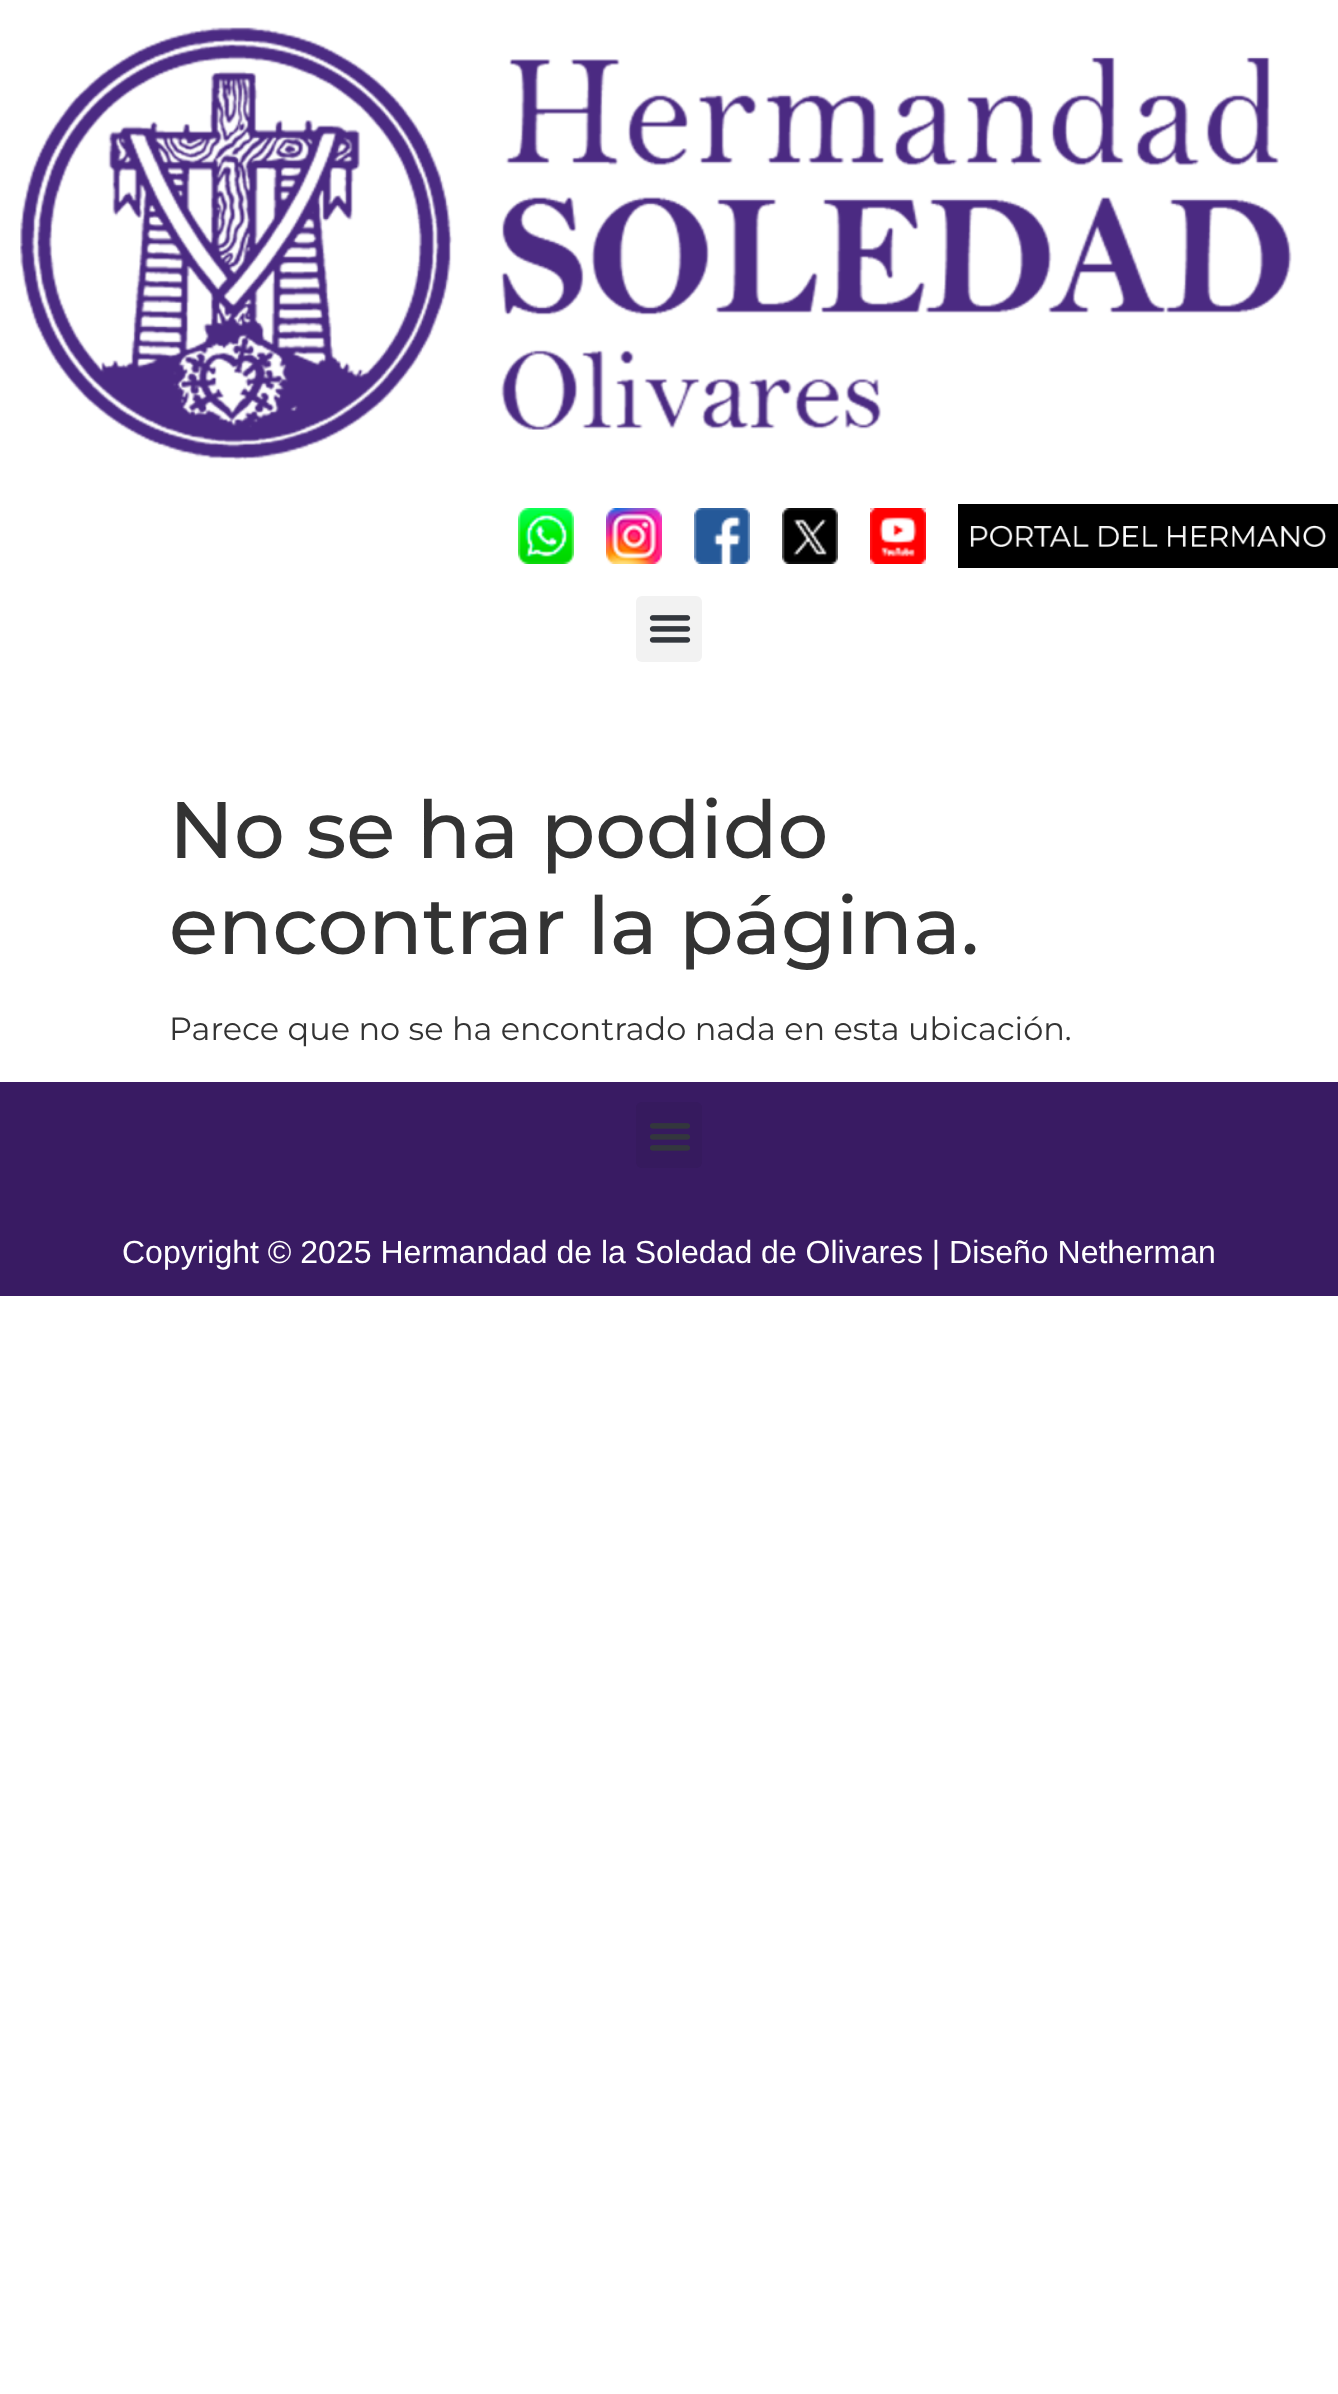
<?xml version="1.0" encoding="UTF-8"?>
<svg xmlns="http://www.w3.org/2000/svg" width="1338" height="2394">
    <rect width="100%" height="100%" fill="#FFFFFF"/>
    <image x="20" y="27" width="1272" height="433" href="img_01.png"/>
    <image x="518" y="508" width="56" height="56" href="img_02.png"/>
    <image x="606" y="508" width="56" height="56" href="img_03.png"/>
    <image x="694" y="508" width="56" height="56" href="img_04.png"/>
    <image x="782" y="508" width="56" height="56" href="img_05.png"/>
    <image x="870" y="508" width="56" height="56" href="img_06.png"/>
    <image x="958" y="504" width="380" height="64" href="img_07.png"/>
    <rect x="636" y="596" width="66" height="66" rx="6" fill="#F2F2F2"/>
    <image x="649" y="615" width="42" height="28" href="img_08.png"/>
    <text font-family="Montserrat" font-size="80" font-weight="500" fill="#333333">
        <tspan x="169" y="858">No se ha podido</tspan>
        <tspan x="169" y="954">encontrar la página.</tspan>
    </text>
    <text x="169" y="1040" font-family="Montserrat" font-size="32" fill="#333333">Parece que no se ha encontrado nada en esta ubicación.</text>
    <rect x="0" y="1082" width="1338" height="214" fill="#391B63"/>
    <rect x="636" y="1102" width="66" height="66" rx="6" fill="#361A5E"/>
    <image x="650" y="1123" width="40" height="28" href="img_09.png"/>
    <text x="122" y="1263" font-family="Liberation Sans" font-size="32" fill="#FFFFFF">Copyright © 2025 Hermandad de la Soledad de Olivares | Diseño Netherman</text>
</svg>
